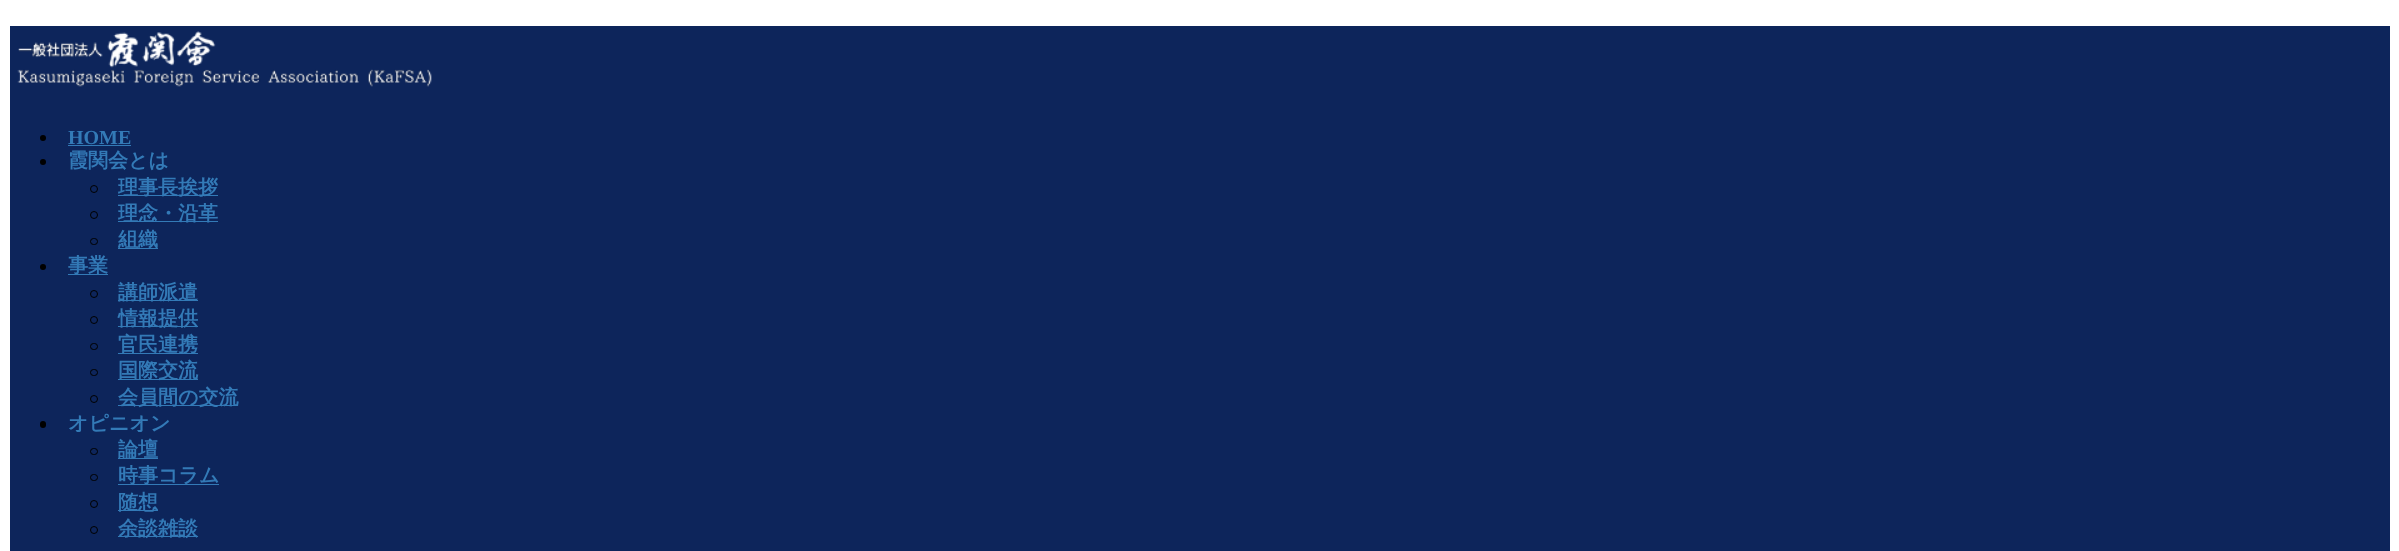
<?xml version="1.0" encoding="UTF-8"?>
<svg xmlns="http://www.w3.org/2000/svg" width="2399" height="551">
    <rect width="100%" height="100%" fill="#FFFFFF"/>
    <rect x="10" y="26" width="2380" height="525" fill="#0D255B"/>
    <image x="17" y="31" width="415" height="56" href="img_01.png"/>
    <circle cx="43" cy="138" r="3" fill="#000000"/>
    <text x="68" y="144" font-family="Liberation Serif" font-size="20" font-weight="700" fill="#337AB7">HOME</text>
    <rect x="68" y="145" width="63" height="1" fill="#337AB7"/>
    <circle cx="43" cy="162" r="3" fill="#000000"/>
    <text x="68" y="167" font-family="WenQuanYi Zen Hei" font-size="20" font-weight="700" fill="#337AB7">霞関会とは</text>
    <circle cx="94" cy="189" r="3.5" fill="none" stroke="#000000"/>
    <rect x="118" y="195" width="100" height="1" fill="#337AB7"/>
    <text x="118" y="194" font-family="WenQuanYi Zen Hei" font-size="20" font-weight="700" fill="#337AB7">理事長挨拶</text>
    <circle cx="94" cy="215" r="3.5" fill="none" stroke="#000000"/>
    <rect x="118" y="221" width="100" height="1" fill="#337AB7"/>
    <text x="118" y="220" font-family="WenQuanYi Zen Hei" font-size="20" font-weight="700" fill="#337AB7">理念・沿革</text>
    <rect x="90.5" y="238.5" width="7" height="6" rx="3" fill="none" stroke="#000000"/>
    <rect x="118" y="248" width="40" height="1" fill="#337AB7"/>
    <text x="118" y="246" font-family="WenQuanYi Zen Hei" font-size="20" font-weight="700" fill="#337AB7">組織</text>
    <circle cx="43" cy="267" r="3" fill="#000000"/>
    <rect x="68" y="274" width="40" height="1" fill="#337AB7"/>
    <text x="68" y="272" font-family="WenQuanYi Zen Hei" font-size="20" font-weight="700" fill="#337AB7">事業</text>
    <circle cx="94" cy="294" r="3.5" fill="none" stroke="#000000"/>
    <rect x="118" y="300" width="80" height="1" fill="#337AB7"/>
    <text x="118" y="299" font-family="WenQuanYi Zen Hei" font-size="20" font-weight="700" fill="#337AB7">講師派遣</text>
    <circle cx="94" cy="320" r="3.5" fill="none" stroke="#000000"/>
    <rect x="118" y="326" width="80" height="1" fill="#337AB7"/>
    <text x="118" y="325" font-family="WenQuanYi Zen Hei" font-size="20" font-weight="700" fill="#337AB7">情報提供</text>
    <rect x="90.5" y="343.5" width="7" height="6" rx="3" fill="none" stroke="#000000"/>
    <rect x="118" y="353" width="80" height="1" fill="#337AB7"/>
    <text x="118" y="351" font-family="WenQuanYi Zen Hei" font-size="20" font-weight="700" fill="#337AB7">官民連携</text>
    <rect x="90.5" y="369.5" width="7" height="6" rx="3" fill="none" stroke="#000000"/>
    <rect x="118" y="379" width="80" height="1" fill="#337AB7"/>
    <text x="118" y="377" font-family="WenQuanYi Zen Hei" font-size="20" font-weight="700" fill="#337AB7">国際交流</text>
    <circle cx="94" cy="399" r="3.5" fill="none" stroke="#000000"/>
    <rect x="118" y="405" width="120" height="1" fill="#337AB7"/>
    <text x="118" y="404" font-family="WenQuanYi Zen Hei" font-size="20" font-weight="700" fill="#337AB7">会員間の交流</text>
    <rect x="40" y="421" width="6" height="7" rx="3" fill="#000000"/>
    <text x="68" y="430" font-family="WenQuanYi Zen Hei" font-size="20" font-weight="700" fill="#337AB7">オピニオン</text>
    <rect x="90.5" y="448.5" width="7" height="6" rx="3" fill="none" stroke="#000000"/>
    <rect x="118" y="458" width="40" height="1" fill="#337AB7"/>
    <text x="118" y="456" font-family="WenQuanYi Zen Hei" font-size="20" font-weight="700" fill="#337AB7">論壇</text>
    <rect x="90.5" y="474.5" width="7" height="6" rx="3" fill="none" stroke="#000000"/>
    <rect x="118" y="484" width="101" height="1" fill="#337AB7"/>
    <text x="118" y="482" font-family="WenQuanYi Zen Hei" font-size="20" font-weight="700" fill="#337AB7">時事コラム</text>
    <circle cx="94" cy="504" r="3.5" fill="none" stroke="#000000"/>
    <rect x="118" y="510" width="40" height="1" fill="#337AB7"/>
    <text x="118" y="509" font-family="WenQuanYi Zen Hei" font-size="20" font-weight="700" fill="#337AB7">随想</text>
    <circle cx="94" cy="530" r="3.5" fill="none" stroke="#000000"/>
    <rect x="118" y="536" width="80" height="1" fill="#337AB7"/>
    <text x="118" y="535" font-family="WenQuanYi Zen Hei" font-size="20" font-weight="700" fill="#337AB7">余談雑談</text>
</svg>
